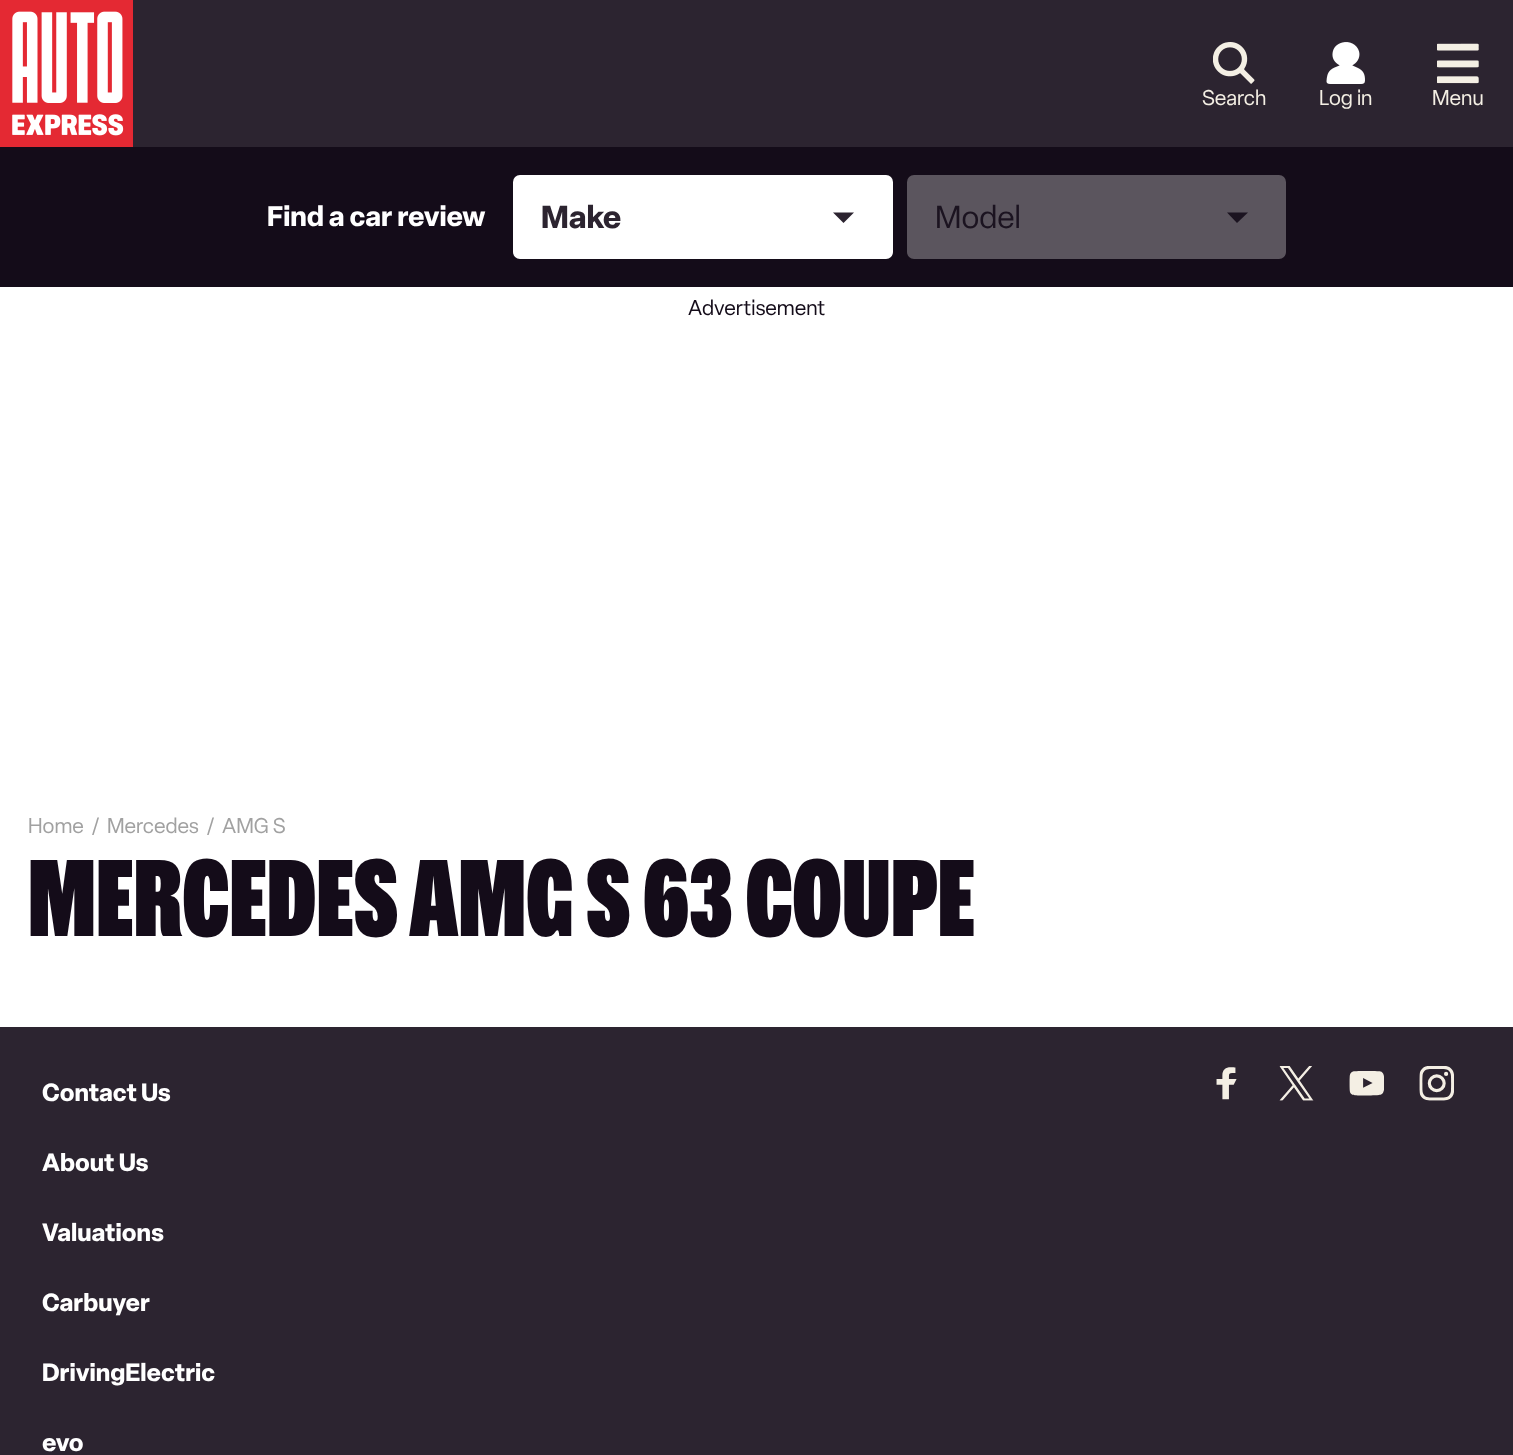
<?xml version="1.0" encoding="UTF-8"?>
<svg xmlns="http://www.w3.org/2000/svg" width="1513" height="1455">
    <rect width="100%" height="100%" fill="#FFFFFF"/>
    <rect x="133" y="0" width="1380" height="147" fill="#2C2430"/>
    <image x="0" y="0" width="133" height="147" href="img_01.png"/>
    <image x="1213" y="42" width="42" height="42" href="img_02.png"/>
    <text x="1202" y="105" font-family="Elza" font-size="21" fill="#F4EFE4">Search</text>
    <image x="1326" y="42" width="39" height="42" href="img_03.png"/>
    <text x="1319" y="105" font-family="Elza" font-size="21" fill="#F4EFE4">Log in</text>
    <image x="1437" y="43" width="42" height="41" href="img_04.png"/>
    <text x="1432" y="105" font-family="Elza" font-size="21" fill="#F4EFE4">Menu</text>
    <rect x="0" y="147" width="1513" height="140" fill="#140C19"/>
    <text x="267" y="226" font-family="Elza" font-size="28" font-weight="700" fill="#FFFFFF">Find a car review</text>
    <rect x="513" y="175" width="380" height="84" rx="7" fill="#FFFFFF"/>
    <text x="541" y="228" font-family="Elza" font-size="31.5" font-weight="700" fill="#2C2430">Make</text>
    <path d="M 854 212.5 L 843.5 223 L 833 212.5 Z" fill="#2C2430"/>
    <rect x="907" y="175" width="379" height="84" rx="7" fill="#5B555E"/>
    <text x="935" y="228" font-family="Elza" font-size="31.5" fill="#1B1320">Model</text>
    <path d="M 1248 212.5 L 1237 223 L 1227 212.5 Z" fill="#1B1320"/>
    <text x="688" y="315" font-family="Elza" font-size="21" fill="#140C19">Advertisement</text>
    <text x="28" y="833" font-family="Elza" font-size="21" fill="#A1A1A1">Home</text>
    <text x="91" y="833" font-family="Elza" font-size="21" fill="#A1A1A1">/</text>
    <text x="107" y="833" font-family="Elza" font-size="21" fill="#A1A1A1">Mercedes</text>
    <text x="206" y="833" font-family="Elza" font-size="21" fill="#A1A1A1">/</text>
    <text x="222" y="833" font-family="Elza" font-size="21" fill="#A1A1A1">AMG S</text>
    <text x="28" y="936" font-family="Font" font-size="112" font-weight="900" fill="#140C19">MERCEDES AMG S 63 COUPE</text>
    <rect x="0" y="1027" width="1513" height="428" fill="#2C2430"/>
    <text x="42" y="1101" font-family="Elza" font-size="24.5" font-weight="700" fill="#FFFFFF">Contact Us</text>
    <text x="42" y="1171" font-family="Elza" font-size="24.5" font-weight="700" fill="#FFFFFF">About Us</text>
    <text x="42" y="1241" font-family="Elza" font-size="24.5" font-weight="700" fill="#FFFFFF">Valuations</text>
    <text x="42" y="1311" font-family="Elza" font-size="24.5" font-weight="700" fill="#FFFFFF">Carbuyer</text>
    <text x="42" y="1381" font-family="Elza" font-size="24.5" font-weight="700" fill="#FFFFFF">DrivingElectric</text>
    <text x="42" y="1451" font-family="Elza" font-size="24.5" font-weight="700" fill="#FFFFFF">evo</text>
    <image x="1216" y="1067" width="21" height="33" href="img_05.png"/>
    <image x="1279" y="1066" width="35" height="35" href="img_06.png"/>
    <image x="1349" y="1071" width="35" height="25" href="img_07.png"/>
    <image x="1419" y="1066" width="35" height="35" href="img_08.png"/>
</svg>
